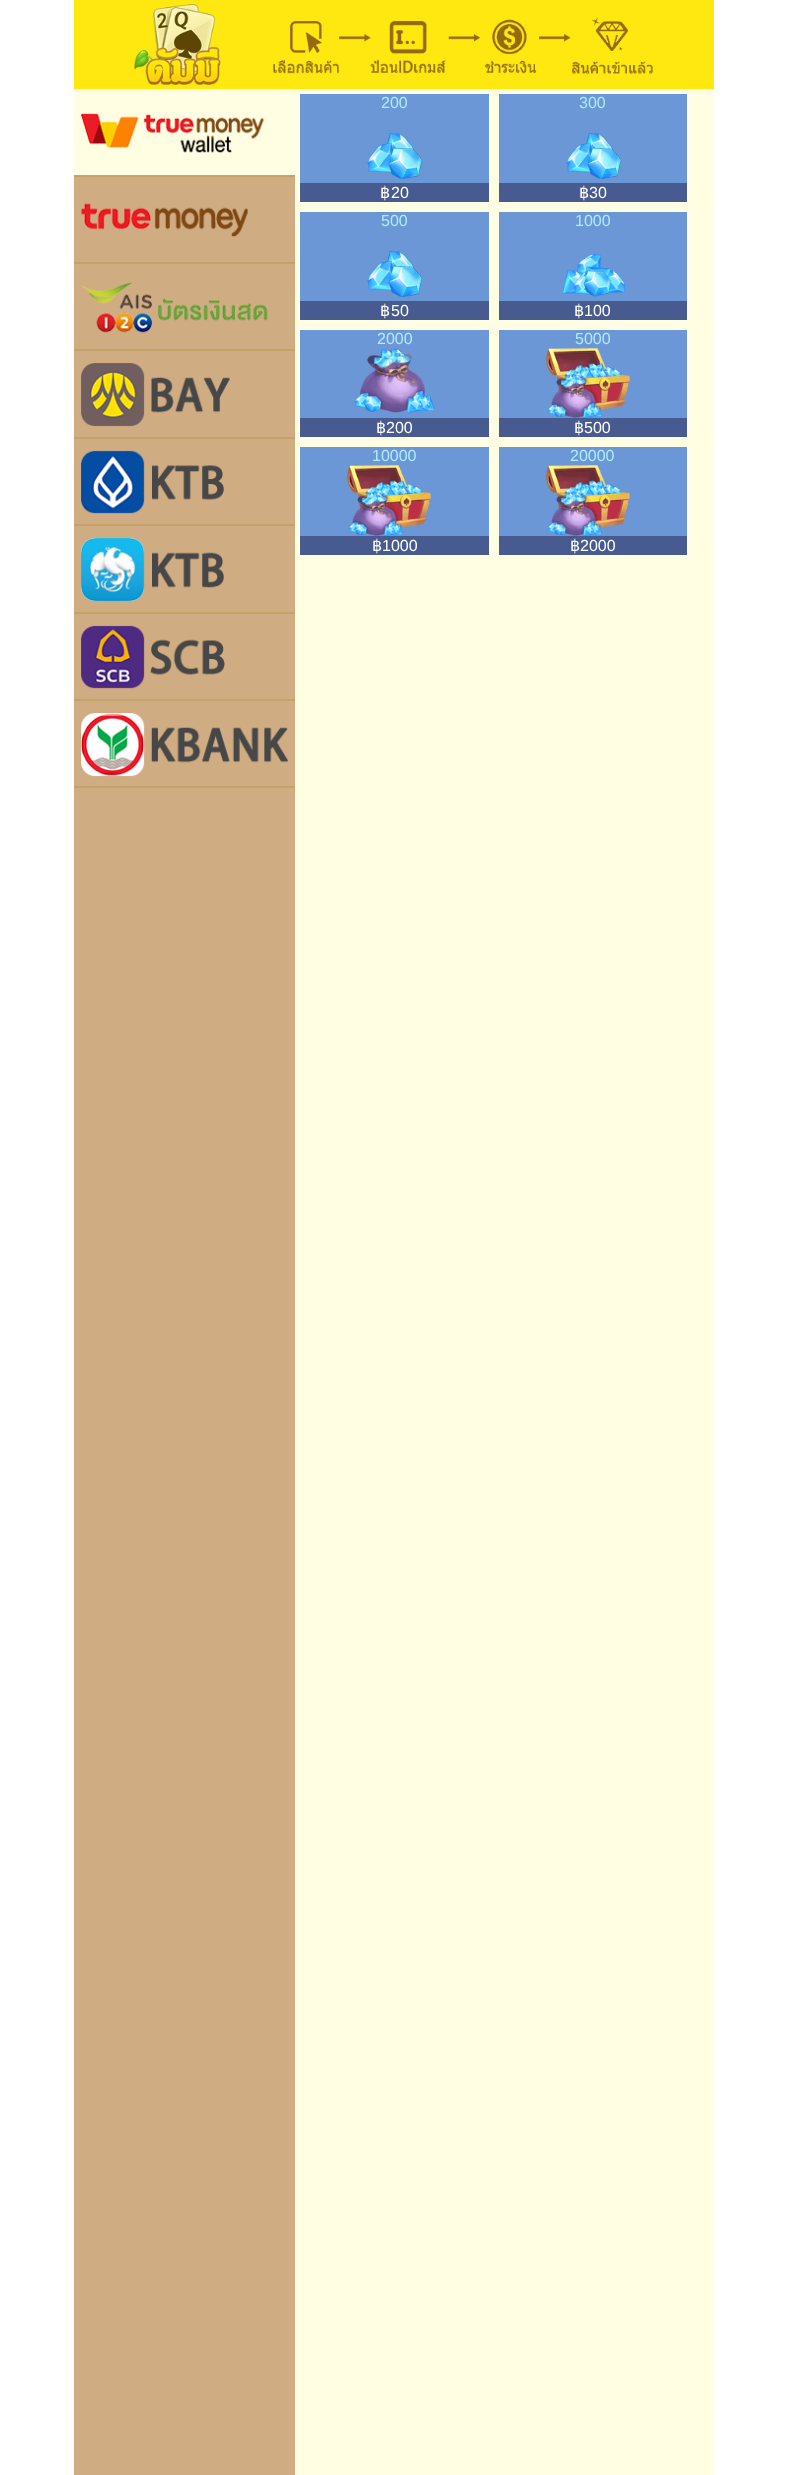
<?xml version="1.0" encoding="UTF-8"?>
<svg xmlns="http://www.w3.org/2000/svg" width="787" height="2475">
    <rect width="100%" height="100%" fill="#FFFFFF"/>
    <rect x="74" y="0" width="640" height="89" fill="#FFE710"/>
    <image x="134" y="4" width="519" height="81" href="img_01.png"/>
    <rect x="74" y="177" width="221" height="2298" fill="#D0AC83"/>
    <rect x="74" y="89" width="221" height="86" fill="#FFFEE3"/>
    <rect x="74" y="175" width="221" height="2" fill="#C6A26B"/>
    <image x="81" y="113" width="183" height="40" href="img_02.png"/>
    <rect x="74" y="262" width="221" height="2" fill="#C6A26B"/>
    <image x="81" y="203" width="167" height="34" href="img_03.png"/>
    <rect x="74" y="349" width="221" height="2" fill="#C6A26B"/>
    <image x="81" y="282" width="187" height="51" href="img_04.png"/>
    <rect x="74" y="437" width="221" height="2" fill="#C6A26B"/>
    <image x="81" y="363" width="149" height="64" href="img_05.png"/>
    <rect x="74" y="524" width="221" height="2" fill="#C6A26B"/>
    <image x="81" y="450" width="143" height="64" href="img_06.png"/>
    <rect x="74" y="612" width="221" height="2" fill="#C6A26B"/>
    <image x="81" y="538" width="143" height="64" href="img_07.png"/>
    <rect x="74" y="699" width="221" height="2" fill="#C6A26B"/>
    <image x="81" y="625" width="144" height="64" href="img_08.png"/>
    <rect x="74" y="786" width="221" height="2" fill="#C6A26B"/>
    <image x="81" y="713" width="207" height="64" href="img_09.png"/>
    <rect x="295" y="89" width="419" height="2386" fill="#FFFEE3"/>
    <rect x="300" y="94" width="189" height="89" fill="#6C97D6"/>
    <text x="381" y="108" font-family="Liberation Sans" font-size="16" fill="#ADEBFB">200</text>
    <image x="367" y="133" width="55" height="46" href="img_10.png"/>
    <rect x="300" y="183" width="189" height="19" fill="#485B90"/>
    <text x="380" y="198" font-family="DejaVu Sans" font-size="16" fill="#FFFFFF">฿</text>
    <text x="391" y="198" font-family="Liberation Sans" font-size="16" fill="#FFFFFF">20</text>
    <rect x="499" y="94" width="188" height="89" fill="#6C97D6"/>
    <text x="579" y="108" font-family="Liberation Sans" font-size="16" fill="#ADEBFB">300</text>
    <image x="566" y="133" width="55" height="46" href="img_10.png"/>
    <rect x="499" y="183" width="188" height="19" fill="#485B90"/>
    <text x="579" y="198" font-family="DejaVu Sans" font-size="16" fill="#FFFFFF">฿</text>
    <text x="589" y="198" font-family="Liberation Sans" font-size="16" fill="#FFFFFF">30</text>
    <rect x="300" y="212" width="189" height="89" fill="#6C97D6"/>
    <text x="381" y="226" font-family="Liberation Sans" font-size="16" fill="#ADEBFB">500</text>
    <image x="367" y="251" width="55" height="46" href="img_10.png"/>
    <rect x="300" y="301" width="189" height="19" fill="#485B90"/>
    <text x="380" y="316" font-family="DejaVu Sans" font-size="16" fill="#FFFFFF">฿</text>
    <text x="391" y="316" font-family="Liberation Sans" font-size="16" fill="#FFFFFF">50</text>
    <rect x="499" y="212" width="188" height="89" fill="#6C97D6"/>
    <text x="575" y="226" font-family="Liberation Sans" font-size="16" fill="#ADEBFB">1000</text>
    <image x="562" y="253" width="64" height="44" href="img_11.png"/>
    <rect x="499" y="301" width="188" height="19" fill="#485B90"/>
    <text x="574" y="316" font-family="DejaVu Sans" font-size="16" fill="#FFFFFF">฿</text>
    <text x="584" y="316" font-family="Liberation Sans" font-size="16" fill="#FFFFFF">100</text>
    <rect x="300" y="330" width="189" height="88" fill="#6C97D6"/>
    <text x="377" y="344" font-family="Liberation Sans" font-size="16" fill="#ADEBFB">2000</text>
    <image x="354" y="348" width="81" height="65" href="img_12.png"/>
    <rect x="300" y="418" width="189" height="19" fill="#485B90"/>
    <text x="376" y="433" font-family="DejaVu Sans" font-size="16" fill="#FFFFFF">฿</text>
    <text x="386" y="433" font-family="Liberation Sans" font-size="16" fill="#FFFFFF">200</text>
    <rect x="499" y="330" width="188" height="88" fill="#6C97D6"/>
    <text x="575" y="344" font-family="Liberation Sans" font-size="16" fill="#ADEBFB">5000</text>
    <image x="546" y="348" width="84" height="70" href="img_13.png"/>
    <rect x="499" y="418" width="188" height="19" fill="#485B90"/>
    <text x="574" y="433" font-family="DejaVu Sans" font-size="16" fill="#FFFFFF">฿</text>
    <text x="584" y="433" font-family="Liberation Sans" font-size="16" fill="#FFFFFF">500</text>
    <rect x="300" y="447" width="189" height="89" fill="#6C97D6"/>
    <text x="372" y="461" font-family="Liberation Sans" font-size="16" fill="#ADEBFB">10000</text>
    <image x="347" y="465" width="84" height="71" href="img_14.png"/>
    <rect x="300" y="536" width="189" height="19" fill="#485B90"/>
    <text x="372" y="551" font-family="DejaVu Sans" font-size="16" fill="#FFFFFF">฿</text>
    <text x="382" y="551" font-family="Liberation Sans" font-size="16" fill="#FFFFFF">1000</text>
    <rect x="499" y="447" width="188" height="89" fill="#6C97D6"/>
    <text x="570" y="461" font-family="Liberation Sans" font-size="16" fill="#ADEBFB">20000</text>
    <image x="546" y="465" width="84" height="71" href="img_14.png"/>
    <rect x="499" y="536" width="188" height="19" fill="#485B90"/>
    <text x="570" y="551" font-family="DejaVu Sans" font-size="16" fill="#FFFFFF">฿</text>
    <text x="580" y="551" font-family="Liberation Sans" font-size="16" fill="#FFFFFF">2000</text>
</svg>
